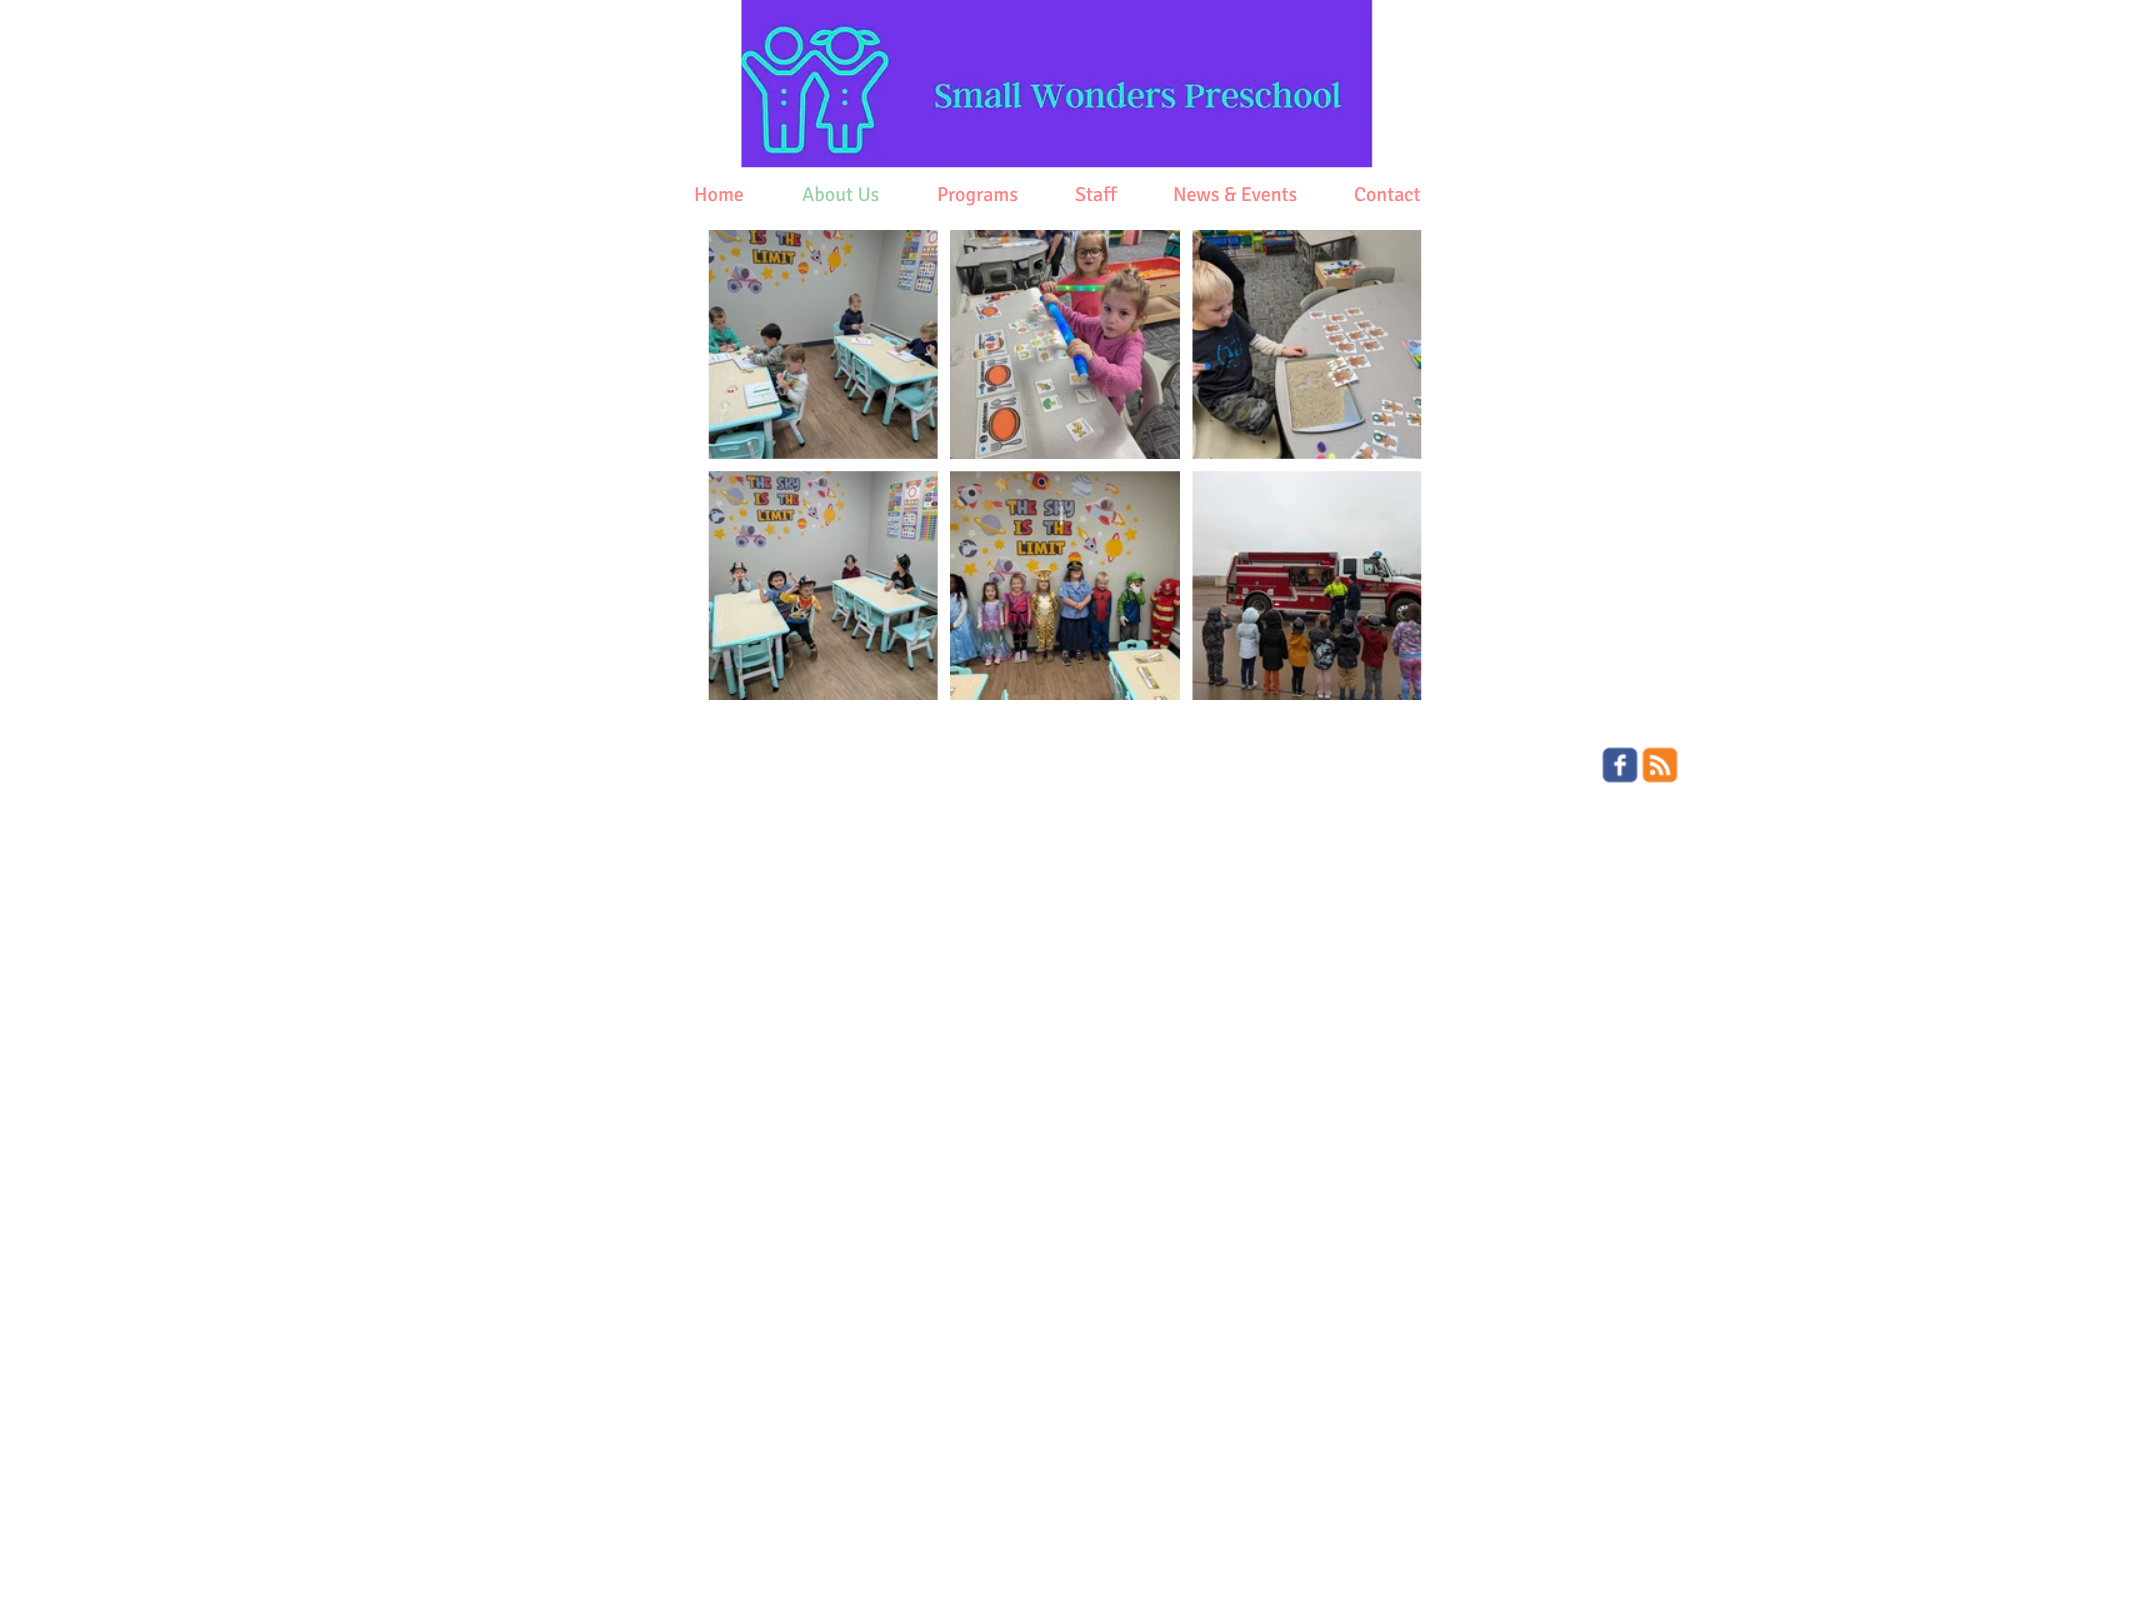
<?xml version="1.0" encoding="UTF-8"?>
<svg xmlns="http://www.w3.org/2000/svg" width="2129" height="1624">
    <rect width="100%" height="100%" fill="#FFFFFF"/>
    <image x="741" y="0" width="632" height="168" href="img_01.png"/>
    <text x="694" y="201" font-family="Signika" font-size="20" fill="#FF8282">Home</text>
    <text x="802" y="201" font-family="Signika" font-size="20" fill="#9CD3A5">About Us</text>
    <text x="937" y="201" font-family="Signika" font-size="20" fill="#FF8282">Programs</text>
    <text x="1075" y="201" font-family="Signika" font-size="20" fill="#FF8282">Staff</text>
    <text x="1173" y="201" font-family="Signika" font-size="20" fill="#FF8282">News &amp; Events</text>
    <text x="1354" y="201" font-family="Signika" font-size="20" fill="#FF8282">Contact</text>
    <rect x="709" y="230" width="229" height="229" fill="#D6D6D6"/>
    <image x="708" y="230" width="230" height="229" href="img_02.png"/>
    <image x="950" y="230" width="230" height="229" href="img_03.png"/>
    <image x="1192" y="230" width="230" height="229" href="img_04.png"/>
    <rect x="709" y="471" width="229" height="229" fill="#D6D6D6"/>
    <image x="708" y="471" width="230" height="229" href="img_05.png"/>
    <image x="950" y="471" width="230" height="229" href="img_06.png"/>
    <image x="1192" y="471" width="230" height="229" href="img_07.png"/>
    <image x="1602" y="747" width="36" height="36" href="img_08.png"/>
    <image x="1642" y="747" width="36" height="36" href="img_09.png"/>
</svg>
